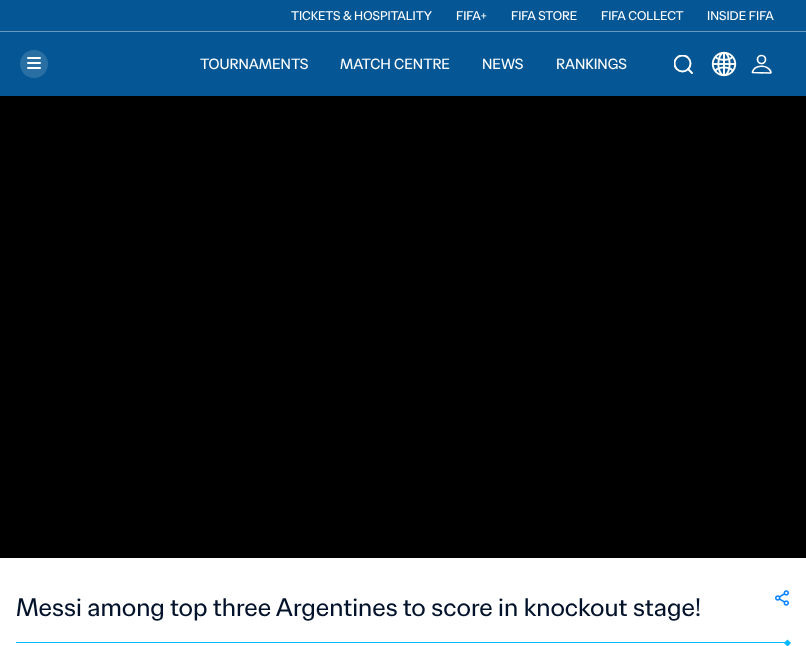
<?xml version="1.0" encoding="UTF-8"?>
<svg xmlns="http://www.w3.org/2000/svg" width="806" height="646">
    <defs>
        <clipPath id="clip1"><rect x="674" y="55" width="19" height="19"/></clipPath>
    </defs>
    <rect width="100%" height="100%" fill="#045694"/>
    <rect x="0" y="31" width="806" height="1" fill="#689ABF"/>
    <text x="291" y="20" font-family="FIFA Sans" font-size="12" fill="#FFFFFF">TICKETS &amp; HOSPITALITY</text>
    <text x="456" y="20" font-family="FIFA Sans" font-size="12" fill="#FFFFFF">FIFA+</text>
    <text x="511" y="20" font-family="FIFA Sans" font-size="12" fill="#FFFFFF">FIFA STORE</text>
    <text x="601" y="20" font-family="FIFA Sans" font-size="12" fill="#FFFFFF">FIFA COLLECT</text>
    <text x="707" y="20" font-family="FIFA Sans" font-size="12" fill="#FFFFFF">INSIDE FIFA</text>
    <circle cx="34" cy="64" r="14" fill="#2A6FA4"/>
    <rect x="27" y="57" width="14" height="2" rx="1" fill="#FFFFFF"/>
    <rect x="27" y="62" width="14" height="2" rx="1" fill="#FFFFFF"/>
    <rect x="27" y="67" width="14" height="2" rx="1" fill="#FFFFFF"/>
    <text x="200" y="69" font-family="FIFA Sans" font-size="14" fill="#FFFFFF">TOURNAMENTS</text>
    <text x="340" y="69" font-family="FIFA Sans" font-size="14" fill="#FFFFFF">MATCH CENTRE</text>
    <text x="482" y="69" font-family="FIFA Sans" font-size="14" fill="#FFFFFF">NEWS</text>
    <text x="556" y="69" font-family="FIFA Sans" font-size="14" fill="#FFFFFF">RANKINGS</text>
    <g clip-path="url(#clip1)">
        <circle cx="682.5" cy="63.5" r="8" fill="none" stroke="#FFFFFF" stroke-width="2"/>
    </g>
    <path d="M 688 69 L 692 73" fill="none" stroke="#FFFFFF" stroke-width="2" stroke-linecap="round"/>
    <image x="711" y="51" width="26" height="26" href="img_01.png"/>
    <circle cx="761.5" cy="59.5" r="4" fill="none" stroke="#FFFFFF" stroke-width="1.7"/>
    <path d="M 752.5 72 C 754.5 64.5 767 64.5 770.5 71 L 771 72.5 L 770.5 73 L 752.5 72.5 Z" fill="none" stroke="#FFFFFF" stroke-width="1.7" stroke-linejoin="round"/>
    <rect x="0" y="96" width="806" height="462" fill="#000000"/>
    <rect x="0" y="558" width="806" height="88" fill="#FFFFFF"/>
    <text x="16" y="616" font-family="FIFA Sans" font-size="24" fill="#03122B">Messi among top three Argentines to score in knockout stage!</text>
    <image x="775" y="590" width="14" height="16" href="img_02.png"/>
    <rect x="16" y="642" width="774" height="1" fill="#00B8FF"/>
    <path d="M 787.5 639.5 L 791 643 L 787.5 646.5 L 784 643 Z" fill="#00B8FF"/>
</svg>
